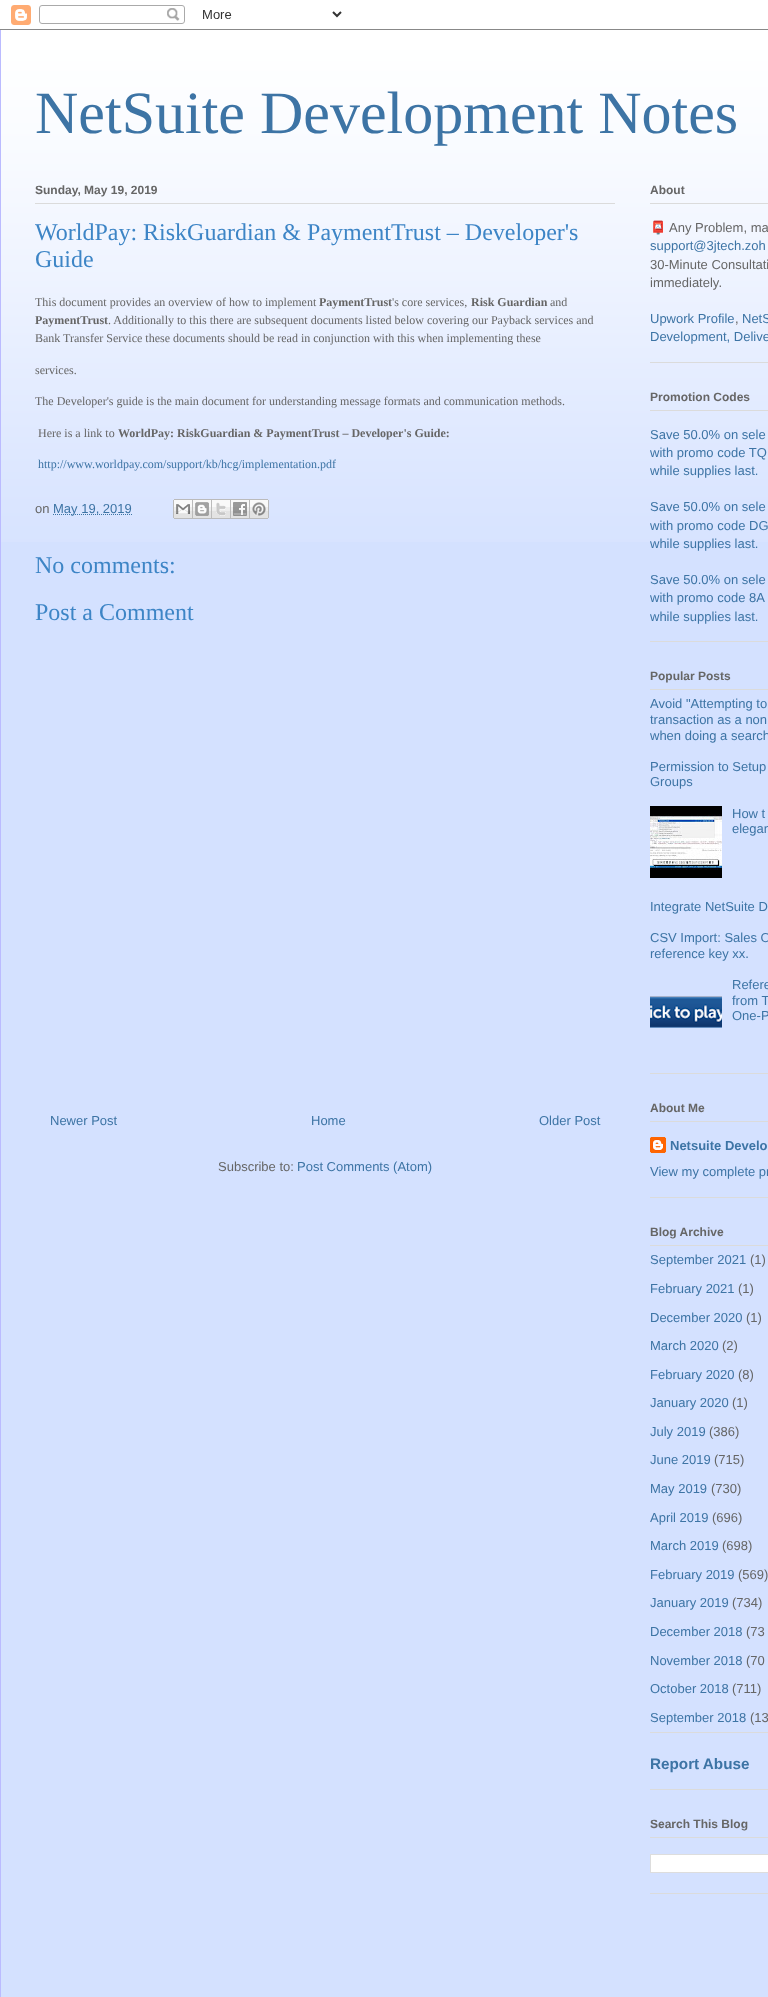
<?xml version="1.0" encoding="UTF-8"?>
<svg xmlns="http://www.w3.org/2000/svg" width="768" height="1997">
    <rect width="100%" height="100%" fill="#FFFFFF"/>
    <image x="0" y="0" width="768" height="29" href="img_01.png"/>
    <image x="0" y="5" width="768" height="25" href="img_02.png"/>
    <rect x="1" y="37" width="767" height="1960" fill="#D4E1FF"/>
    <image x="1" y="30" width="767" height="512" href="img_03.png"/>
    <rect x="0" y="30" width="1" height="1967" fill="#BBBBFF"/>
    <text x="35" y="133" font-family="Liberation Serif" font-size="60" fill="#3D74A5">NetSuite Development Notes</text>
    <rect x="35" y="203" width="580" height="1" fill="#DBDBDB"/>
    <text x="35" y="194" font-family="Liberation Sans" font-size="12" font-weight="700" fill="#666666">Sunday, May 19, 2019</text>
    <text font-family="Liberation Serif" font-size="24" fill="#3D85C6">
        <tspan x="35" y="240">WorldPay: RiskGuardian &amp; PaymentTrust – Developer's</tspan>
        <tspan x="35" y="267">Guide</tspan>
    </text>
    <text x="35" y="306" font-family="Liberation Serif" font-size="12" fill="#666666">This document provides an overview of how to implement</text>
    <text x="319" y="306" font-family="Liberation Serif" font-size="12" font-weight="700" fill="#666666">PaymentTrust</text>
    <text x="392" y="306" font-family="Liberation Serif" font-size="12" fill="#666666">'s core services,</text>
    <text x="471" y="306" font-family="Liberation Serif" font-size="12" font-weight="700" fill="#666666">Risk Guardian</text>
    <text x="550" y="306" font-family="Liberation Serif" font-size="12" fill="#666666">and</text>
    <text x="35" y="324" font-family="Liberation Serif" font-size="12" font-weight="700" fill="#666666">PaymentTrust</text>
    <text x="108" y="324" font-family="Liberation Serif" font-size="12" fill="#666666">. Additionally to this there are subsequent documents listed below covering our Payback services and</text>
    <text x="35" y="342" font-family="Liberation Serif" font-size="12" fill="#666666">Bank Transfer Service these documents should be read in conjunction with this when implementing these</text>
    <text x="35" y="374" font-family="Liberation Serif" font-size="12" fill="#666666">services.</text>
    <text x="35" y="405" font-family="Liberation Serif" font-size="12" fill="#666666">The Developer's guide is the main document for understanding message formats and communication methods.</text>
    <text x="38" y="437" font-family="Liberation Serif" font-size="12" fill="#666666">Here is a link to</text>
    <text x="118" y="437" font-family="Liberation Serif" font-size="12" font-weight="700" fill="#666666">WorldPay: RiskGuardian &amp; PaymentTrust – Developer's Guide:</text>
    <text x="38" y="468" font-family="Liberation Serif" font-size="12" fill="#3D74A5">http://www.worldpay.com/support/kb/hcg/implementation.pdf</text>
    <text x="35" y="513" font-family="Liberation Sans" font-size="13" fill="#666666">on</text>
    <path d="M 53 514.5 H 132" fill="none" stroke="#3D74A5" stroke-dasharray="1 1"/>
    <text x="53" y="513" font-family="Liberation Sans" font-size="13" fill="#3D74A5">May 19, 2019</text>
    <image x="173" y="499" width="20" height="20" href="img_04.png"/>
    <image x="193" y="499" width="19" height="20" href="img_05.png"/>
    <image x="212" y="499" width="19" height="20" href="img_06.png"/>
    <image x="231" y="499" width="19" height="20" href="img_07.png"/>
    <image x="250" y="499" width="19" height="20" href="img_08.png"/>
    <text font-family="Liberation Serif" font-size="24" fill="#3D85C6">
        <tspan x="35" y="573">No comments:</tspan>
        <tspan x="35" y="620">Post a Comment</tspan>
    </text>
    <text x="50" y="1125" font-family="Liberation Sans" font-size="13" fill="#3D74A5">Newer Post</text>
    <text x="311" y="1125" font-family="Liberation Sans" font-size="13" fill="#3D74A5">Home</text>
    <text x="539" y="1125" font-family="Liberation Sans" font-size="13" fill="#3D74A5">Older Post</text>
    <text x="218" y="1171" font-family="Liberation Sans" font-size="13" fill="#666666">Subscribe to:</text>
    <text x="297" y="1171" font-family="Liberation Sans" font-size="13" fill="#3D74A5">Post Comments (Atom)</text>
    <rect x="650" y="362" width="118" height="1" fill="#DBDBDB"/>
    <rect x="650" y="203" width="118" height="1" fill="#DBDBDB"/>
    <text x="650" y="194" font-family="Liberation Sans" font-size="12" font-weight="700" fill="#666666">About</text>
    <text x="650" y="232" font-family="Noto Color Emoji" font-size="13" fill="#666666">📮</text>
    <text x="669" y="232" font-family="Liberation Sans" font-size="13" fill="#666666">Any Problem, ma</text>
    <text x="650" y="250" font-family="Liberation Sans" font-size="13" fill="#3D74A5">support@3jtech.zoh</text>
    <text font-family="Liberation Sans" font-size="13" fill="#666666">
        <tspan x="650" y="269">30-Minute Consultati</tspan>
        <tspan x="650" y="287">immediately.</tspan>
    </text>
    <text x="650" y="323" font-family="Liberation Sans" font-size="13" fill="#3D74A5">Upwork Profile</text>
    <text x="735" y="323" font-family="Liberation Sans" font-size="13" fill="#666666">,</text>
    <text x="742" y="323" font-family="Liberation Sans" font-size="13" fill="#3D74A5">NetS</text>
    <text x="650" y="341" font-family="Liberation Sans" font-size="13" fill="#3D74A5">Development, Delive</text>
    <rect x="650" y="641" width="118" height="1" fill="#DBDBDB"/>
    <rect x="650" y="410" width="118" height="1" fill="#DBDBDB"/>
    <text x="650" y="401" font-family="Liberation Sans" font-size="12" font-weight="700" fill="#666666">Promotion Codes</text>
    <text font-family="Liberation Sans" font-size="13" fill="#3D74A5">
        <tspan x="650" y="439">Save 50.0% on sele</tspan>
        <tspan x="650" y="457">with promo code TQ</tspan>
        <tspan x="650" y="475">while supplies last.</tspan>
    </text>
    <text font-family="Liberation Sans" font-size="13" fill="#3D74A5">
        <tspan x="650" y="511">Save 50.0% on sele</tspan>
        <tspan x="650" y="530">with promo code DG</tspan>
        <tspan x="650" y="548">while supplies last.</tspan>
    </text>
    <text font-family="Liberation Sans" font-size="13" fill="#3D74A5">
        <tspan x="650" y="584">Save 50.0% on sele</tspan>
        <tspan x="650" y="602">with promo code 8A</tspan>
        <tspan x="650" y="621">while supplies last.</tspan>
    </text>
    <rect x="650" y="1073" width="118" height="1" fill="#DBDBDB"/>
    <rect x="650" y="689" width="118" height="1" fill="#DBDBDB"/>
    <text x="650" y="680" font-family="Liberation Sans" font-size="12" font-weight="700" fill="#666666">Popular Posts</text>
    <text font-family="Liberation Sans" font-size="13" fill="#3D74A5">
        <tspan x="650" y="708">Avoid "Attempting to</tspan>
        <tspan x="650" y="724">transaction as a non</tspan>
        <tspan x="650" y="740">when doing a search</tspan>
    </text>
    <text font-family="Liberation Sans" font-size="13" fill="#3D74A5">
        <tspan x="650" y="771">Permission to Setup</tspan>
        <tspan x="650" y="786">Groups</tspan>
    </text>
    <image x="650" y="806" width="72" height="72" href="img_09.png"/>
    <text font-family="Liberation Sans" font-size="13" fill="#3D74A5">
        <tspan x="732" y="818">How t</tspan>
        <tspan x="732" y="833">elegan</tspan>
    </text>
    <text x="650" y="911" font-family="Liberation Sans" font-size="13" fill="#3D74A5">Integrate NetSuite D</text>
    <text font-family="Liberation Sans" font-size="13" fill="#3D74A5">
        <tspan x="650" y="942">CSV Import: Sales O</tspan>
        <tspan x="650" y="958">reference key xx.</tspan>
    </text>
    <image x="650" y="996" width="72" height="32" href="img_10.png"/>
    <text font-family="Liberation Sans" font-size="13" fill="#3D74A5">
        <tspan x="732" y="989">Refere</tspan>
        <tspan x="732" y="1005">from T</tspan>
        <tspan x="732" y="1020">One-P</tspan>
    </text>
    <rect x="650" y="1197" width="118" height="1" fill="#DBDBDB"/>
    <rect x="650" y="1121" width="118" height="1" fill="#DBDBDB"/>
    <text x="650" y="1112" font-family="Liberation Sans" font-size="12" font-weight="700" fill="#666666">About Me</text>
    <image x="650" y="1137" width="16" height="16" href="img_11.png"/>
    <text x="670" y="1150" font-family="Liberation Sans" font-size="13" font-weight="700" fill="#3D74A5">Netsuite Develo</text>
    <text x="650" y="1176" font-family="Liberation Sans" font-size="13" fill="#3D74A5">View my complete pr</text>
    <rect x="650" y="1732" width="118" height="1" fill="#DBDBDB"/>
    <rect x="650" y="1245" width="118" height="1" fill="#DBDBDB"/>
    <text x="650" y="1236" font-family="Liberation Sans" font-size="12" font-weight="700" fill="#666666">Blog Archive</text>
    <text x="650" y="1264" font-family="Liberation Sans" font-size="13" fill="#3D74A5">September 2021</text>
    <text x="750" y="1264" font-family="Liberation Sans" font-size="13" fill="#666666">(1)</text>
    <text x="650" y="1293" font-family="Liberation Sans" font-size="13" fill="#3D74A5">February 2021</text>
    <text x="738" y="1293" font-family="Liberation Sans" font-size="13" fill="#666666">(1)</text>
    <text x="650" y="1322" font-family="Liberation Sans" font-size="13" fill="#3D74A5">December 2020</text>
    <text x="746" y="1322" font-family="Liberation Sans" font-size="13" fill="#666666">(1)</text>
    <text x="650" y="1350" font-family="Liberation Sans" font-size="13" fill="#3D74A5">March 2020</text>
    <text x="722" y="1350" font-family="Liberation Sans" font-size="13" fill="#666666">(2)</text>
    <text x="650" y="1379" font-family="Liberation Sans" font-size="13" fill="#3D74A5">February 2020</text>
    <text x="738" y="1379" font-family="Liberation Sans" font-size="13" fill="#666666">(8)</text>
    <text x="650" y="1407" font-family="Liberation Sans" font-size="13" fill="#3D74A5">January 2020</text>
    <text x="732" y="1407" font-family="Liberation Sans" font-size="13" fill="#666666">(1)</text>
    <text x="650" y="1436" font-family="Liberation Sans" font-size="13" fill="#3D74A5">July 2019</text>
    <text x="709" y="1436" font-family="Liberation Sans" font-size="13" fill="#666666">(386)</text>
    <text x="650" y="1464" font-family="Liberation Sans" font-size="13" fill="#3D74A5">June 2019</text>
    <text x="714" y="1464" font-family="Liberation Sans" font-size="13" fill="#666666">(715)</text>
    <text x="650" y="1493" font-family="Liberation Sans" font-size="13" fill="#3D74A5">May 2019</text>
    <text x="711" y="1493" font-family="Liberation Sans" font-size="13" fill="#666666">(730)</text>
    <text x="650" y="1522" font-family="Liberation Sans" font-size="13" fill="#3D74A5">April 2019</text>
    <text x="712" y="1522" font-family="Liberation Sans" font-size="13" fill="#666666">(696)</text>
    <text x="650" y="1550" font-family="Liberation Sans" font-size="13" fill="#3D74A5">March 2019</text>
    <text x="722" y="1550" font-family="Liberation Sans" font-size="13" fill="#666666">(698)</text>
    <text x="650" y="1579" font-family="Liberation Sans" font-size="13" fill="#3D74A5">February 2019</text>
    <text x="738" y="1579" font-family="Liberation Sans" font-size="13" fill="#666666">(569)</text>
    <text x="650" y="1607" font-family="Liberation Sans" font-size="13" fill="#3D74A5">January 2019</text>
    <text x="732" y="1607" font-family="Liberation Sans" font-size="13" fill="#666666">(734)</text>
    <text x="650" y="1636" font-family="Liberation Sans" font-size="13" fill="#3D74A5">December 2018</text>
    <text x="746" y="1636" font-family="Liberation Sans" font-size="13" fill="#666666">(73</text>
    <text x="650" y="1665" font-family="Liberation Sans" font-size="13" fill="#3D74A5">November 2018</text>
    <text x="746" y="1665" font-family="Liberation Sans" font-size="13" fill="#666666">(70</text>
    <text x="650" y="1693" font-family="Liberation Sans" font-size="13" fill="#3D74A5">October 2018</text>
    <text x="732" y="1693" font-family="Liberation Sans" font-size="13" fill="#666666">(711)</text>
    <text x="650" y="1722" font-family="Liberation Sans" font-size="13" fill="#3D74A5">September 2018</text>
    <text x="750" y="1722" font-family="Liberation Sans" font-size="13" fill="#666666">(13</text>
    <rect x="650" y="1789" width="118" height="1" fill="#DBDBDB"/>
    <text x="650" y="1769" font-family="Liberation Sans" font-size="15.25" font-weight="700" fill="#3D74A5">Report Abuse</text>
    <rect x="650" y="1893" width="118" height="1" fill="#DBDBDB"/>
    <rect x="650" y="1837" width="118" height="1" fill="#DBDBDB"/>
    <text x="650" y="1828" font-family="Liberation Sans" font-size="12" font-weight="700" fill="#666666">Search This Blog</text>
    <rect x="650.5" y="1854.5" width="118" height="18" fill="#FFFFFF" stroke="#DDDDDD"/>
</svg>
